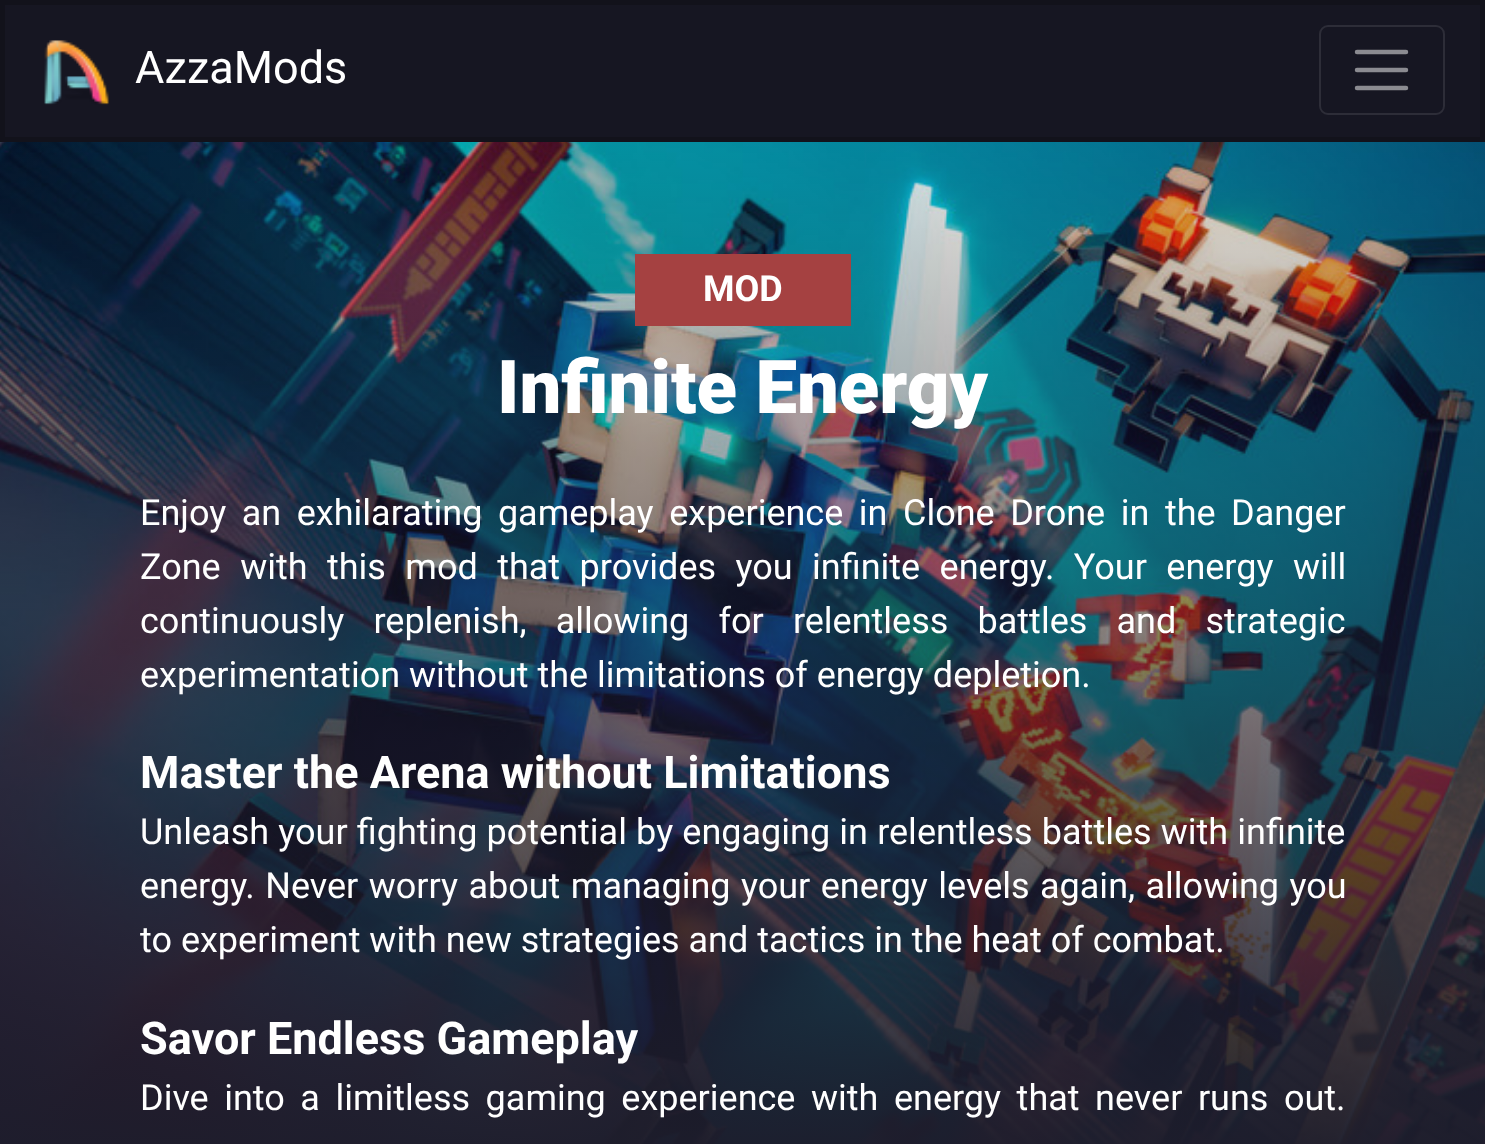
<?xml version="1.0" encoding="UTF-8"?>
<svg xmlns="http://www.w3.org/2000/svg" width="1485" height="1144">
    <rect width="100%" height="100%" fill="#FFFFFF"/>
    <rect x="2.5" y="2.5" width="1480" height="137" fill="#161622" stroke="#12121B" stroke-width="5"/>
    <image x="44" y="40" width="65" height="65" href="img_01.png"/>
    <text x="135" y="83" font-family="Roboto" font-size="45" fill="#FFFFFF">AzzaMods</text>
    <rect x="1320" y="26" width="124" height="88" rx="8" fill="none" stroke="#2D2D38" stroke-width="2"/>
    <path d="M 1357 52 H 1406 M 1357 70 H 1406 M 1357 88 H 1406" fill="none" stroke="#8B8B91" stroke-width="4.5" stroke-linecap="round"/>
    <image x="0" y="142" width="1485" height="1002" href="img_02.png"/>
    <rect x="635" y="254" width="216" height="72" fill="#A54141"/>
    <text x="703" y="301" font-family="Roboto" font-size="36" font-weight="700" fill="#FFFFFF">MOD</text>
    <text x="497" y="413" font-family="Roboto" font-size="74.25" font-weight="900" fill="#FFFFFF">Infinite Energy</text>
    <text font-family="Roboto" font-size="36" fill="#FFFFFF">
        <tspan x="140" y="525" word-spacing="6.6">Enjoy an exhilarating gameplay experience in Clone Drone in the Danger</tspan>
        <tspan x="140" y="579" word-spacing="10.5">Zone with this mod that provides you infinite energy. Your energy will</tspan>
        <tspan x="140" y="633" word-spacing="20.25">continuously replenish, allowing for relentless battles and strategic</tspan>
        <tspan x="140" y="687">experimentation without the limitations of energy depletion.</tspan>
    </text>
    <text x="140" y="788" font-family="Roboto" font-size="45" font-weight="700" fill="#FFFFFF">Master the Arena without Limitations</text>
    <text font-family="Roboto" font-size="36" fill="#FFFFFF">
        <tspan x="140" y="844" word-spacing="0.25">Unleash your fighting potential by engaging in relentless battles with infinite</tspan>
        <tspan x="140" y="898" word-spacing="1.5">energy. Never worry about managing your energy levels again, allowing you</tspan>
        <tspan x="140" y="952">to experiment with new strategies and tactics in the heat of combat.</tspan>
    </text>
    <text x="140" y="1054" font-family="Roboto" font-size="45" font-weight="700" fill="#FFFFFF">Savor Endless Gameplay</text>
    <text x="140" y="1110" word-spacing="6.6" font-family="Roboto" font-size="36" fill="#FFFFFF">Dive into a limitless gaming experience with energy that never runs out.</text>
</svg>
